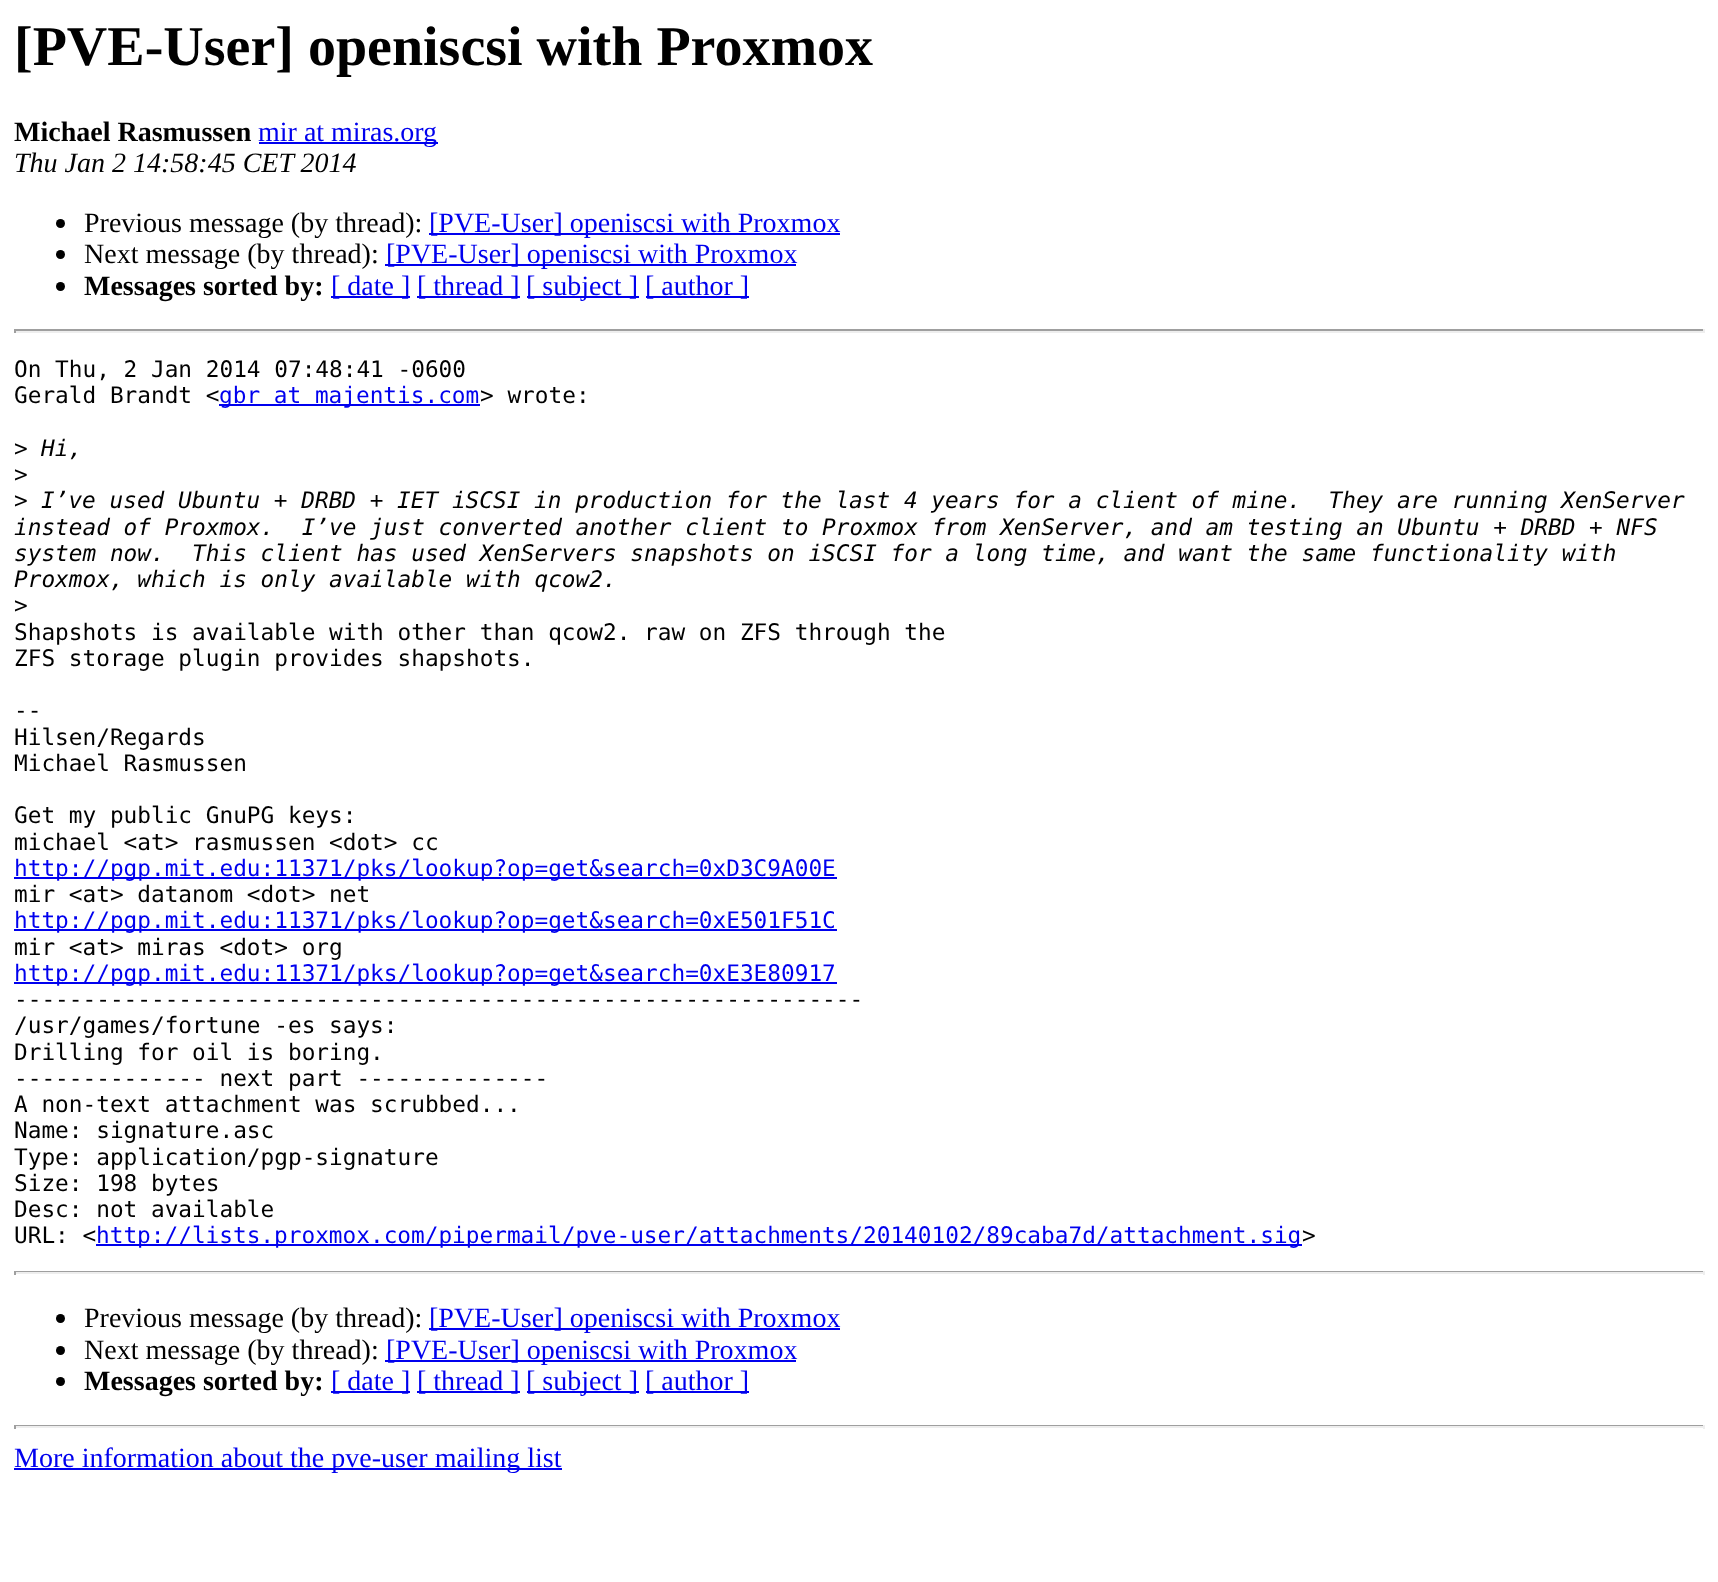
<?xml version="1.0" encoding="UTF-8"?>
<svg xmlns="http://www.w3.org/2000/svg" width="1718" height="1582">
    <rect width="100%" height="100%" fill="#FFFFFF"/>
    <text x="14" y="65" font-family="Liberation Serif" font-size="56" font-weight="700" fill="#000000">[PVE-User] openiscsi with Proxmox</text>
    <text x="14" y="141" font-family="Liberation Serif" font-size="28" font-weight="700" fill="#000000">Michael Rasmussen</text>
    <rect x="259" y="142" width="179" height="2" fill="#0000EE"/>
    <text x="258" y="141" font-family="Liberation Serif" font-size="28" fill="#0000EE">mir at miras.org</text>
    <text x="14" y="172" font-family="Liberation Serif" font-size="28" font-style="italic" fill="#000000">Thu Jan 2 14:58:45 CET 2014</text>
    <circle cx="60.5" cy="223.5" r="4.5" fill="#000000"/>
    <text x="84" y="232" font-family="Liberation Serif" font-size="28" fill="#000000">Previous message (by thread):</text>
    <rect x="429" y="233" width="411" height="2" fill="#0000EE"/>
    <text x="429" y="232" font-family="Liberation Serif" font-size="28" fill="#0000EE">[PVE-User] openiscsi with Proxmox</text>
    <circle cx="60.5" cy="254.5" r="4.5" fill="#000000"/>
    <text x="84" y="263" font-family="Liberation Serif" font-size="28" fill="#000000">Next message (by thread):</text>
    <rect x="385" y="264" width="411" height="2" fill="#0000EE"/>
    <text x="386" y="263" font-family="Liberation Serif" font-size="28" fill="#0000EE">[PVE-User] openiscsi with Proxmox</text>
    <circle cx="60.5" cy="286.5" r="4.5" fill="#000000"/>
    <text x="84" y="295" font-family="Liberation Serif" font-size="28" font-weight="700" fill="#000000">Messages sorted by:</text>
    <rect x="331" y="296" width="79" height="2" fill="#0000EE"/>
    <text x="331" y="295" font-family="Liberation Serif" font-size="28" fill="#0000EE">[ date ]</text>
    <rect x="417" y="296" width="103" height="2" fill="#0000EE"/>
    <text x="417" y="295" font-family="Liberation Serif" font-size="28" fill="#0000EE">[ thread ]</text>
    <rect x="527" y="296" width="112" height="2" fill="#0000EE"/>
    <text x="526" y="295" font-family="Liberation Serif" font-size="28" fill="#0000EE">[ subject ]</text>
    <rect x="646" y="296" width="103" height="2" fill="#0000EE"/>
    <text x="645" y="295" font-family="Liberation Serif" font-size="28" fill="#0000EE">[ author ]</text>
    <rect x="14" y="329" width="1691" height="2" fill="#9F9F9F"/>
    <rect x="1703" y="329" width="2" height="4" fill="#EEEEEE"/>
    <rect x="14" y="331" width="1691" height="2" fill="#EEEEEE"/>
    <rect x="14" y="329" width="2" height="4" fill="#9F9F9F"/>
    <text font-family="DejaVu Sans Mono" font-size="22.75" fill="#000000">
        <tspan x="14" y="377">On Thu, 2 Jan 2014 07:48:41 -0600</tspan>
        <tspan x="14" y="403">Gerald Brandt &lt;</tspan>
    </text>
    <rect x="219" y="404" width="261" height="2" fill="#0000EE"/>
    <text x="219" y="403" font-family="DejaVu Sans Mono" font-size="22.75" fill="#0000EE">gbr at majentis.com</text>
    <text x="480" y="403" font-family="DejaVu Sans Mono" font-size="22.75" fill="#000000">&gt; wrote:</text>
    <text x="14" y="456" font-family="DejaVu Sans Mono" font-size="22.75" fill="#000000">&gt;</text>
    <text x="41" y="456" font-family="DejaVu Sans Mono" font-size="22.75" font-style="italic" fill="#000000">Hi,</text>
    <text font-family="DejaVu Sans Mono" font-size="22.75" fill="#000000">
        <tspan x="14" y="482">&gt;</tspan>
        <tspan x="14" y="508">&gt;</tspan>
    </text>
    <text x="41" y="508" font-family="DejaVu Sans Mono" font-size="22.75" font-style="italic" fill="#000000" xml:space="preserve">I’ve used Ubuntu + DRBD + IET iSCSI in production for the last 4 years for a client of mine.  They are running XenServer</text>
    <text font-family="DejaVu Sans Mono" font-size="22.75" font-style="italic" fill="#000000" xml:space="preserve"><tspan x="14" y="535">instead of Proxmox.  I’ve just converted another client to Proxmox from XenServer, and am testing an Ubuntu + DRBD + NFS</tspan><tspan x="14" y="561">system now.  This client has used XenServers snapshots on iSCSI for a long time, and want the same functionality with</tspan><tspan x="14" y="587">Proxmox, which is only available with qcow2.</tspan></text>
    <text font-family="DejaVu Sans Mono" font-size="22.75" fill="#000000">
        <tspan x="14" y="613">&gt;</tspan>
        <tspan x="14" y="640">Shapshots is available with other than qcow2. raw on ZFS through the</tspan>
        <tspan x="14" y="666">ZFS storage plugin provides shapshots.</tspan>
    </text>
    <text font-family="DejaVu Sans Mono" font-size="22.75" fill="#000000">
        <tspan x="14" y="718">--</tspan>
        <tspan x="14" y="745">Hilsen/Regards</tspan>
        <tspan x="14" y="771">Michael Rasmussen</tspan>
    </text>
    <text font-family="DejaVu Sans Mono" font-size="22.75" fill="#000000">
        <tspan x="14" y="823">Get my public GnuPG keys:</tspan>
        <tspan x="14" y="850">michael &lt;at&gt; rasmussen &lt;dot&gt; cc</tspan>
    </text>
    <rect x="14" y="877" width="823" height="2" fill="#0000EE"/>
    <text x="14" y="876" font-family="DejaVu Sans Mono" font-size="22.75" fill="#0000EE">http://pgp.mit.edu:11371/pks/lookup?op=get&amp;search=0xD3C9A00E</text>
    <text x="14" y="902" font-family="DejaVu Sans Mono" font-size="22.75" fill="#000000">mir &lt;at&gt; datanom &lt;dot&gt; net</text>
    <rect x="14" y="929" width="823" height="2" fill="#0000EE"/>
    <text x="14" y="928" font-family="DejaVu Sans Mono" font-size="22.75" fill="#0000EE">http://pgp.mit.edu:11371/pks/lookup?op=get&amp;search=0xE501F51C</text>
    <text x="14" y="955" font-family="DejaVu Sans Mono" font-size="22.75" fill="#000000">mir &lt;at&gt; miras &lt;dot&gt; org</text>
    <rect x="14" y="982" width="823" height="2" fill="#0000EE"/>
    <text x="14" y="981" font-family="DejaVu Sans Mono" font-size="22.75" fill="#0000EE">http://pgp.mit.edu:11371/pks/lookup?op=get&amp;search=0xE3E80917</text>
    <text font-family="DejaVu Sans Mono" font-size="22.75" fill="#000000">
        <tspan x="14" y="1007">--------------------------------------------------------------</tspan>
        <tspan x="14" y="1033">/usr/games/fortune -es says:</tspan>
        <tspan x="14" y="1060">Drilling for oil is boring.</tspan>
        <tspan x="14" y="1086">-------------- next part --------------</tspan>
        <tspan x="14" y="1112">A non-text attachment was scrubbed...</tspan>
        <tspan x="14" y="1138">Name: signature.asc</tspan>
        <tspan x="14" y="1165">Type: application/pgp-signature</tspan>
        <tspan x="14" y="1191">Size: 198 bytes</tspan>
        <tspan x="14" y="1217">Desc: not available</tspan>
        <tspan x="14" y="1243">URL: &lt;</tspan>
    </text>
    <rect x="96" y="1244" width="1206" height="2" fill="#0000EE"/>
    <text x="96" y="1243" font-family="DejaVu Sans Mono" font-size="22.75" fill="#0000EE">http://lists.proxmox.com/pipermail/pve-user/attachments/20140102/89caba7d/attachment.sig</text>
    <text x="1302" y="1243" font-family="DejaVu Sans Mono" font-size="22.75" fill="#000000">&gt;</text>
    <rect x="14" y="1271" width="1691" height="1" fill="#9F9F9F"/>
    <rect x="1703" y="1271" width="2" height="4" fill="#EEEEEE"/>
    <rect x="14" y="1272" width="1691" height="2" fill="#EEEEEE"/>
    <rect x="14" y="1271" width="2" height="4" fill="#9F9F9F"/>
    <circle cx="60.5" cy="1318.5" r="4.5" fill="#000000"/>
    <text x="84" y="1327" font-family="Liberation Serif" font-size="28" fill="#000000">Previous message (by thread):</text>
    <rect x="429" y="1328" width="411" height="2" fill="#0000EE"/>
    <text x="429" y="1327" font-family="Liberation Serif" font-size="28" fill="#0000EE">[PVE-User] openiscsi with Proxmox</text>
    <circle cx="60.5" cy="1350.5" r="4.5" fill="#000000"/>
    <text x="84" y="1359" font-family="Liberation Serif" font-size="28" fill="#000000">Next message (by thread):</text>
    <rect x="385" y="1360" width="411" height="2" fill="#0000EE"/>
    <text x="386" y="1359" font-family="Liberation Serif" font-size="28" fill="#0000EE">[PVE-User] openiscsi with Proxmox</text>
    <circle cx="60.5" cy="1381.5" r="4.5" fill="#000000"/>
    <text x="84" y="1390" font-family="Liberation Serif" font-size="28" font-weight="700" fill="#000000">Messages sorted by:</text>
    <rect x="331" y="1391" width="79" height="2" fill="#0000EE"/>
    <text x="331" y="1390" font-family="Liberation Serif" font-size="28" fill="#0000EE">[ date ]</text>
    <rect x="417" y="1391" width="103" height="2" fill="#0000EE"/>
    <text x="417" y="1390" font-family="Liberation Serif" font-size="28" fill="#0000EE">[ thread ]</text>
    <rect x="527" y="1391" width="112" height="2" fill="#0000EE"/>
    <text x="526" y="1390" font-family="Liberation Serif" font-size="28" fill="#0000EE">[ subject ]</text>
    <rect x="646" y="1391" width="103" height="2" fill="#0000EE"/>
    <text x="645" y="1390" font-family="Liberation Serif" font-size="28" fill="#0000EE">[ author ]</text>
    <rect x="14" y="1425" width="1691" height="1" fill="#9F9F9F"/>
    <rect x="1703" y="1425" width="2" height="4" fill="#EEEEEE"/>
    <rect x="14" y="1426" width="1691" height="2" fill="#EEEEEE"/>
    <rect x="14" y="1425" width="2" height="4" fill="#9F9F9F"/>
    <rect x="14" y="1468" width="548" height="2" fill="#0000EE"/>
    <text x="14" y="1467" font-family="Liberation Serif" font-size="28" fill="#0000EE">More information about the pve-user mailing list</text>
</svg>
